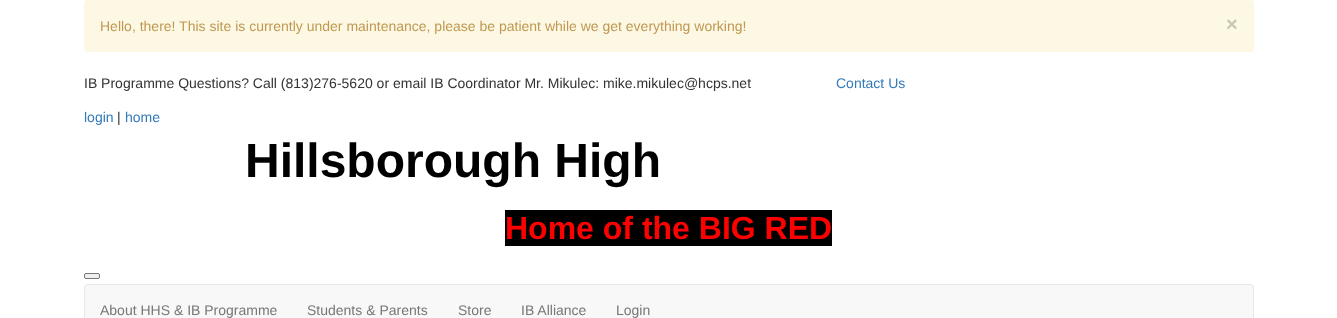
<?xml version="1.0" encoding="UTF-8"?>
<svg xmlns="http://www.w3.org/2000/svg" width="1337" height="318">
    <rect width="100%" height="100%" fill="#FFFFFF"/>
    <rect x="84" y="0" width="1170" height="52" rx="4" fill="#FCF8E3"/>
    <text x="100" y="31" font-family="Liberation Sans" font-size="14" fill="#C09853">Hello, there! This site is currently under maintenance, please be patient while we get everything working!</text>
    <text x="1226" y="31" font-family="Liberation Sans" font-size="20" font-weight="700" fill="#CAC6B6">×</text>
    <text x="84" y="88" font-family="Liberation Sans" font-size="14" fill="#333333">IB Programme Questions? Call (813)276-5620 or email IB Coordinator Mr. Mikulec: mike.mikulec@hcps.net</text>
    <text x="836" y="88" font-family="Liberation Sans" font-size="14" fill="#337AB7">Contact Us</text>
    <text x="84" y="122" font-family="Liberation Sans" font-size="14" fill="#337AB7">login</text>
    <text x="117" y="122" font-family="Liberation Sans" font-size="14" fill="#333333">|</text>
    <text x="125" y="122" font-family="Liberation Sans" font-size="14" fill="#337AB7">home</text>
    <text x="245" y="177" font-family="Liberation Sans" font-size="48" font-weight="700" fill="#000000">Hillsborough High</text>
    <rect x="505" y="210" width="327" height="36" fill="#000000"/>
    <text x="505" y="239" font-family="Liberation Sans" font-size="32" font-weight="700" fill="#FF0000">Home of the BIG RED</text>
    <rect x="84.5" y="273.5" width="15" height="5" rx="1.5" fill="#EFEFEF" stroke="#767676"/>
    <rect x="84.5" y="284.5" width="1169" height="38" rx="3.5" fill="#F8F8F8" stroke="#E7E7E7"/>
    <text x="100" y="315" font-family="Liberation Sans" font-size="14" fill="#777777">About HHS &amp; IB Programme</text>
    <text x="307" y="315" font-family="Liberation Sans" font-size="14" fill="#777777">Students &amp; Parents</text>
    <text x="458" y="315" font-family="Liberation Sans" font-size="14" fill="#777777">Store</text>
    <text x="521" y="315" font-family="Liberation Sans" font-size="14" fill="#777777">IB Alliance</text>
    <text x="616" y="315" font-family="Liberation Sans" font-size="14" fill="#777777">Login</text>
</svg>
